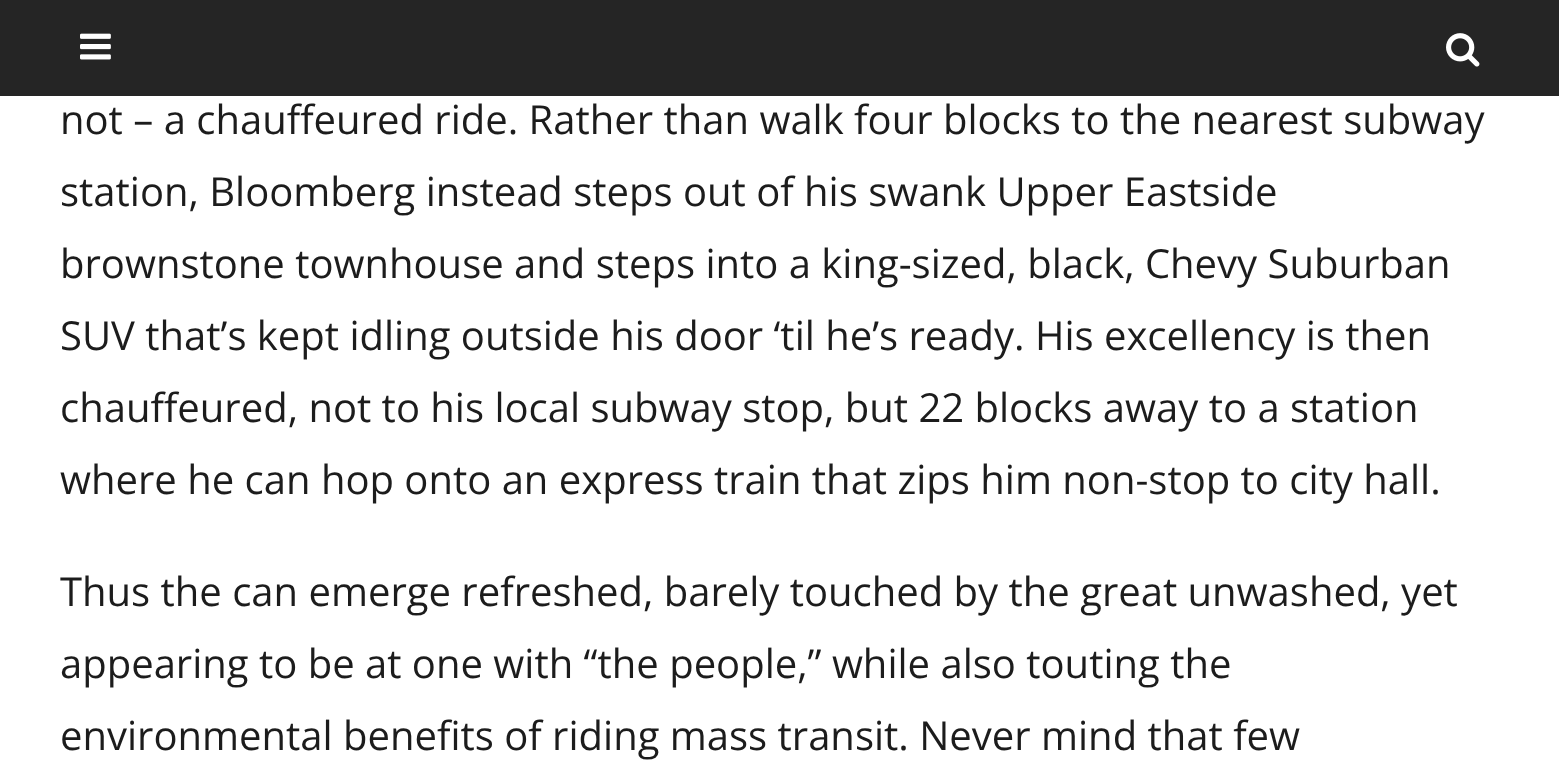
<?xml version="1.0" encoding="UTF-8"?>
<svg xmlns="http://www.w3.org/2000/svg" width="1559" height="762">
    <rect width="100%" height="100%" fill="#FFFFFF"/>
    <rect x="0" y="0" width="1559" height="96" fill="#252525"/>
    <image x="80" y="33" width="31" height="27" href="img_01.png"/>
    <image x="1446" y="33" width="34" height="34" href="img_02.png"/>
    <text font-family="Open Sans" font-size="40" fill="#1C1C1C">
        <tspan x="60" y="134">not – a chauffeured ride. Rather than walk four blocks to the nearest subway</tspan>
        <tspan x="60" y="206">station, Bloomberg instead steps out of his swank Upper Eastside</tspan>
        <tspan x="60" y="278">brownstone townhouse and steps into a king-sized, black, Chevy Suburban</tspan>
        <tspan x="60" y="350">SUV that’s kept idling outside his door ‘til he’s ready. His excellency is then</tspan>
        <tspan x="60" y="422">chauffeured, not to his local subway stop, but 22 blocks away to a station</tspan>
        <tspan x="60" y="494">where he can hop onto an express train that zips him non-stop to city hall.</tspan>
    </text>
    <text font-family="Open Sans" font-size="40" fill="#1C1C1C">
        <tspan x="60" y="606">Thus the can emerge refreshed, barely touched by the great unwashed, yet</tspan>
        <tspan x="60" y="678">appearing to be at one with “the people,” while also touting the</tspan>
        <tspan x="60" y="750">environmental benefits of riding mass transit. Never mind that few</tspan>
    </text>
</svg>
